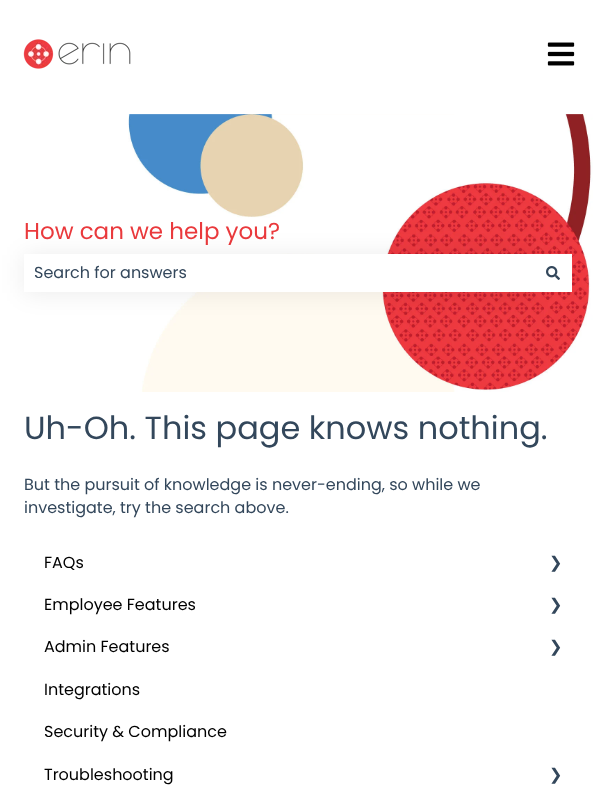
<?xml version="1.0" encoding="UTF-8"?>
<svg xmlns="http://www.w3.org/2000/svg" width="596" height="810">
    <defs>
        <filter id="blur1" x="-50%" y="-200%" width="200%" height="500%"><feGaussianBlur stdDeviation="12"/></filter>
    </defs>
    <rect width="100%" height="100%" fill="#FFFFFF"/>
    <image x="23" y="39" width="108" height="30" href="img_01.png"/>
    <image x="547" y="42" width="28" height="24" href="img_02.png"/>
    <image x="128" y="114" width="465" height="278" href="img_03.png"/>
    <text x="24" y="239" font-family="Poppins" font-size="23" fill="#EA393C">How can we help you?</text>
    <rect x="24" y="255" width="510" height="38" fill="#000000" fill-opacity="0.08" filter="url(#blur1)"/>
    <rect x="24" y="254" width="548" height="38" fill="#FFFFFF"/>
    <text x="34" y="278" font-family="Poppins" font-size="16" fill="#33475B">Search for answers</text>
    <image x="546" y="266" width="14" height="14" href="img_04.png"/>
    <text x="24" y="439" font-family="Poppins" font-size="32" fill="#33475B">Uh-Oh. This page knows nothing.</text>
    <text font-family="Poppins" font-size="16" fill="#33475B">
        <tspan x="24" y="490">But the pursuit of knowledge is never-ending, so while we</tspan>
        <tspan x="24" y="513">investigate, try the search above.</tspan>
    </text>
    <text x="44" y="568" font-family="Poppins" font-size="16" fill="#000000">FAQs</text>
    <text x="549" y="568" font-family="DejaVu Sans" font-size="16" fill="#33475B">❯</text>
    <text x="44" y="610" font-family="Poppins" font-size="16" fill="#000000">Employee Features</text>
    <text x="549" y="610" font-family="DejaVu Sans" font-size="16" fill="#33475B">❯</text>
    <text x="44" y="652" font-family="Poppins" font-size="16" fill="#000000">Admin Features</text>
    <text x="549" y="652" font-family="DejaVu Sans" font-size="16" fill="#33475B">❯</text>
    <text x="44" y="695" font-family="Poppins" font-size="16" fill="#000000">Integrations</text>
    <text x="44" y="737" font-family="Poppins" font-size="16" fill="#000000">Security &amp; Compliance</text>
    <text x="44" y="780" font-family="Poppins" font-size="16" fill="#000000">Troubleshooting</text>
    <text x="549" y="780" font-family="DejaVu Sans" font-size="16" fill="#33475B">❯</text>
</svg>
